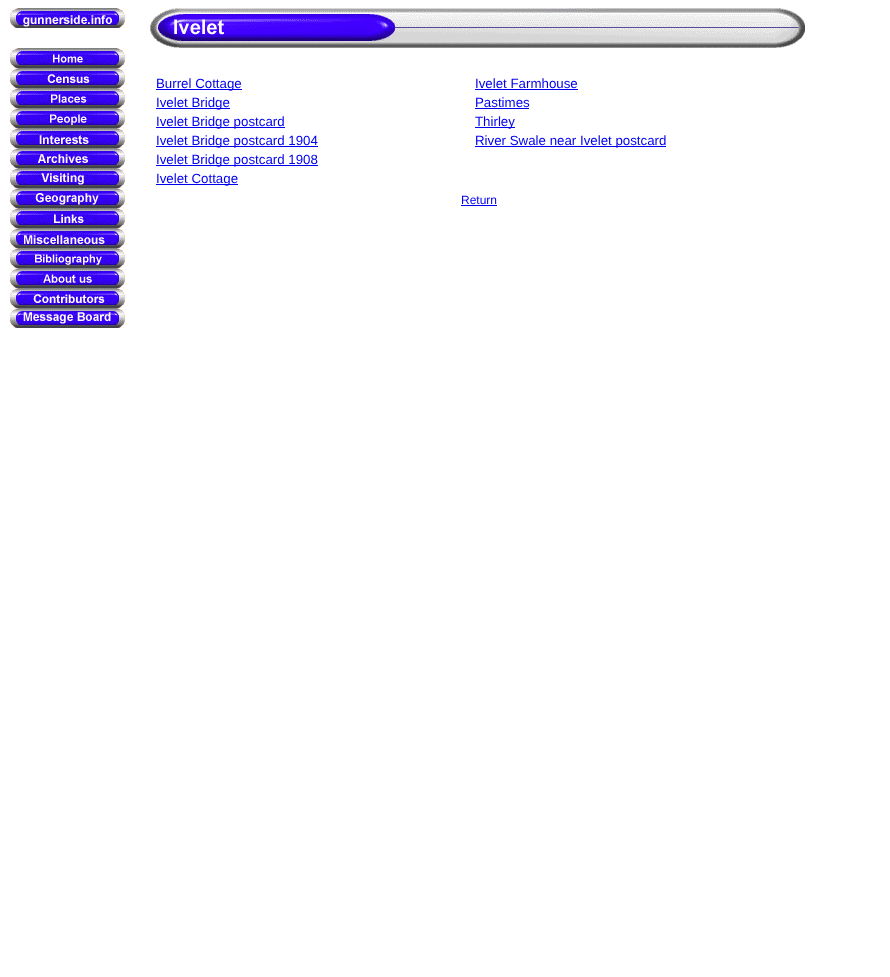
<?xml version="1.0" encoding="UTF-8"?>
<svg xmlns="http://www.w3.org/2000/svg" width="890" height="977">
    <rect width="100%" height="100%" fill="#FFFFFF"/>
    <image x="10" y="8" width="115" height="20" href="img_01.png"/>
    <image x="150" y="8" width="655" height="40" href="img_02.png"/>
    <image x="10" y="48" width="115" height="20" href="img_03.png"/>
    <image x="10" y="68" width="115" height="20" href="img_04.png"/>
    <image x="10" y="88" width="115" height="20" href="img_05.png"/>
    <image x="10" y="108" width="115" height="20" href="img_06.png"/>
    <image x="10" y="128" width="115" height="20" href="img_07.png"/>
    <image x="10" y="148" width="115" height="20" href="img_08.png"/>
    <image x="10" y="168" width="115" height="20" href="img_09.png"/>
    <image x="10" y="188" width="115" height="20" href="img_10.png"/>
    <image x="10" y="208" width="115" height="20" href="img_11.png"/>
    <image x="10" y="228" width="115" height="20" href="img_12.png"/>
    <image x="10" y="248" width="115" height="20" href="img_13.png"/>
    <image x="10" y="268" width="115" height="20" href="img_14.png"/>
    <image x="10" y="288" width="115" height="20" href="img_15.png"/>
    <image x="10" y="308" width="115" height="20" href="img_16.png"/>
    <rect x="156" y="89" width="86" height="1" fill="#0000EE"/>
    <text x="156" y="88" font-family="Liberation Sans" font-size="13.3" fill="#0000EE">Burrel Cottage</text>
    <text x="475" y="88" font-family="Liberation Sans" font-size="13.3" fill="#0000EE">Ivelet Farmhouse</text>
    <rect x="475" y="89" width="103" height="1" fill="#0000EE"/>
    <rect x="156" y="108" width="74" height="1" fill="#0000EE"/>
    <text x="156" y="107" font-family="Liberation Sans" font-size="13.3" fill="#0000EE">Ivelet Bridge</text>
    <text x="475" y="107" font-family="Liberation Sans" font-size="13.3" fill="#0000EE">Pastimes</text>
    <rect x="475" y="108" width="54" height="1" fill="#0000EE"/>
    <rect x="156" y="127" width="129" height="1" fill="#0000EE"/>
    <text x="156" y="126" font-family="Liberation Sans" font-size="13.3" fill="#0000EE">Ivelet Bridge postcard</text>
    <rect x="475" y="127" width="40" height="1" fill="#0000EE"/>
    <text x="475" y="126" font-family="Liberation Sans" font-size="13.3" fill="#0000EE">Thirley</text>
    <rect x="156" y="146" width="162" height="1" fill="#0000EE"/>
    <text x="156" y="145" font-family="Liberation Sans" font-size="13.3" fill="#0000EE">Ivelet Bridge postcard 1904</text>
    <rect x="475" y="146" width="191" height="1" fill="#0000EE"/>
    <text x="475" y="145" font-family="Liberation Sans" font-size="13.3" fill="#0000EE">River Swale near Ivelet postcard</text>
    <rect x="156" y="165" width="162" height="1" fill="#0000EE"/>
    <text x="156" y="164" font-family="Liberation Sans" font-size="13.3" fill="#0000EE">Ivelet Bridge postcard 1908</text>
    <rect x="156" y="184" width="82" height="1" fill="#0000EE"/>
    <text x="156" y="183" font-family="Liberation Sans" font-size="13.3" fill="#0000EE">Ivelet Cottage</text>
    <text x="461" y="204" font-family="Liberation Sans" font-size="12" fill="#0000EE">Return</text>
    <rect x="461" y="205" width="36" height="1" fill="#0000EE"/>
</svg>
